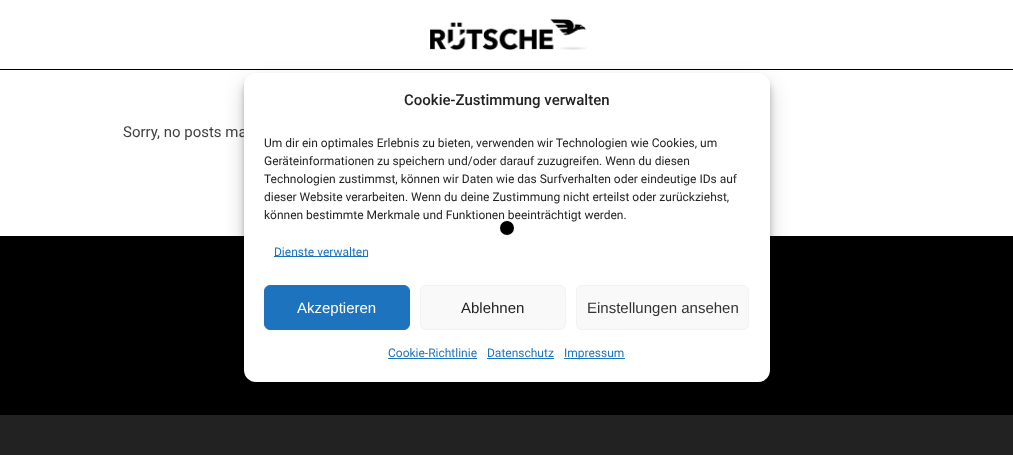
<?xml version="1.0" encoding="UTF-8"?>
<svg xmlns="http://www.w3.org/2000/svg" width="1013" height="455">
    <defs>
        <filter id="blur1" x="-50%" y="-200%" width="200%" height="500%"><feGaussianBlur stdDeviation="3"/></filter>
        <filter id="blur2" x="-50%" y="-200%" width="200%" height="500%"><feGaussianBlur stdDeviation="10"/></filter>
    </defs>
    <rect width="100%" height="100%" fill="#000000"/>
    <rect x="0" y="0" width="1013" height="69" fill="#FFFFFF"/>
    <image x="430" y="19" width="157" height="32" href="img_01.png"/>
    <rect x="0" y="70" width="1013" height="166" fill="#FFFFFF"/>
    <text x="123" y="137" font-family="Roboto" font-size="15" fill="#414042">Sorry, no posts ma</text>
    <rect x="0" y="415" width="1013" height="40" fill="#222222"/>
    <rect x="244" y="79" width="526" height="309" rx="12" fill="#000000" fill-opacity="0.23" filter="url(#blur1)"/>
    <rect x="244" y="83" width="526" height="309" rx="12" fill="#000000" fill-opacity="0.19" filter="url(#blur2)"/>
    <rect x="244" y="73" width="526" height="309" rx="12" fill="#FFFFFF"/>
    <text x="404" y="105" font-family="Roboto" font-size="15" font-weight="500" fill="#222222">Cookie-Zustimmung verwalten</text>
    <text font-family="Roboto" font-size="12" fill="#222222">
        <tspan x="264" y="147">Um dir ein optimales Erlebnis zu bieten, verwenden wir Technologien wie Cookies, um</tspan>
        <tspan x="264" y="165">Geräteinformationen zu speichern und/oder darauf zuzugreifen. Wenn du diesen</tspan>
        <tspan x="264" y="183">Technologien zustimmst, können wir Daten wie das Surfverhalten oder eindeutige IDs auf</tspan>
        <tspan x="264" y="201">dieser Website verarbeiten. Wenn du deine Zustimmung nicht erteilst oder zurückziehst,</tspan>
        <tspan x="264" y="219">können bestimmte Merkmale und Funktionen beeinträchtigt werden.</tspan>
    </text>
    <rect x="274" y="256" width="94" height="1" fill="#1E73BE"/>
    <text x="274" y="256" font-family="Roboto" font-size="12" fill="#1E73BE">Dienste verwalten</text>
    <rect x="264.5" y="285.5" width="145" height="44" rx="5.5" fill="#1E73BE" stroke="#1E73BE"/>
    <text x="297" y="313" font-family="Liberation Sans" font-size="15" fill="#FFFFFF">Akzeptieren</text>
    <rect x="420.5" y="285.5" width="145" height="44" rx="5.5" fill="#F9F9F9" stroke="#F2F2F2"/>
    <text x="461" y="313" font-family="Liberation Sans" font-size="15" fill="#222222">Ablehnen</text>
    <rect x="576.5" y="285.5" width="172" height="44" rx="5.5" fill="#F9F9F9" stroke="#F2F2F2"/>
    <text x="587" y="313" font-family="Liberation Sans" font-size="15" fill="#333333">Einstellungen ansehen</text>
    <text x="388" y="357" font-family="Roboto" font-size="12" fill="#1E73BE">Cookie-Richtlinie</text>
    <rect x="388" y="358" width="89" height="1" fill="#1E73BE"/>
    <text x="487" y="357" font-family="Roboto" font-size="12" fill="#1E73BE">Datenschutz</text>
    <rect x="487" y="358" width="67" height="1" fill="#1E73BE"/>
    <rect x="564" y="358" width="61" height="1" fill="#1E73BE"/>
    <text x="564" y="357" font-family="Roboto" font-size="12" fill="#1E73BE">Impressum</text>
    <circle cx="507" cy="228" r="7" fill="#000000"/>
</svg>
